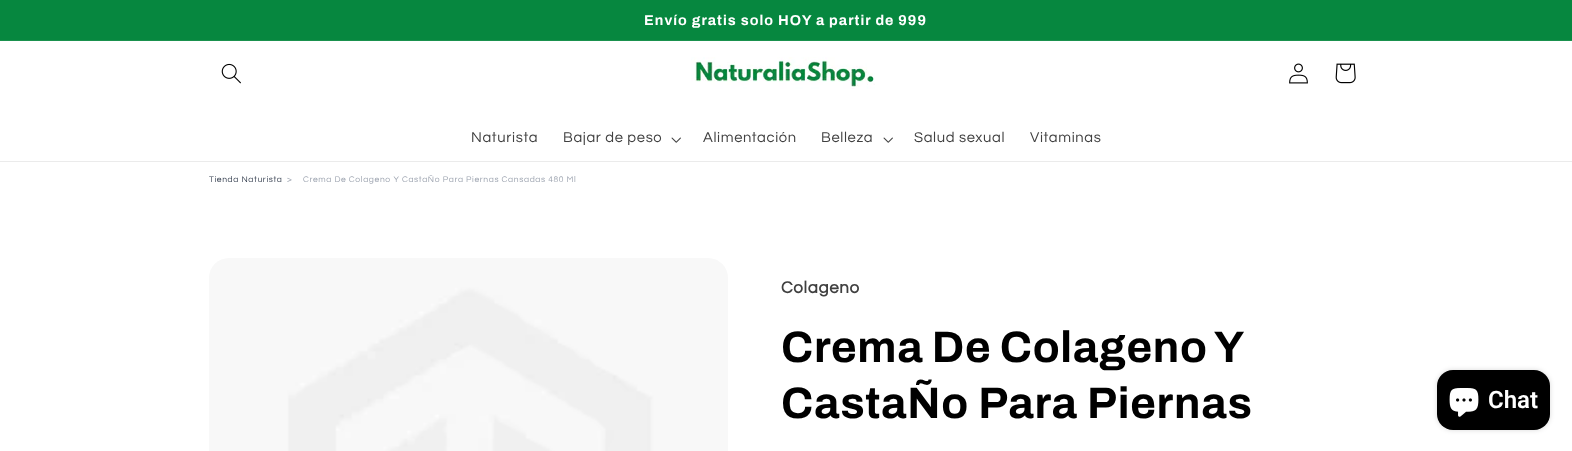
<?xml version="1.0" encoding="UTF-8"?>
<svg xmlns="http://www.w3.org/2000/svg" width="1572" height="451">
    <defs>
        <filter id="blur1" x="-50%" y="-200%" width="200%" height="500%"><feGaussianBlur stdDeviation="2.5"/></filter>
    </defs>
    <rect width="100%" height="100%" fill="#FFFFFF"/>
    <rect x="0" y="0" width="1572" height="40" fill="#06873F"/>
    <rect x="0" y="40" width="1572" height="1" fill="#1A914E"/>
    <text x="644" y="25" font-family="Archivo" font-size="14.25" font-weight="700" letter-spacing="1.05" fill="#FFFFFF">Envío gratis solo HOY a partir de 999</text>
    <rect x="0" y="161" width="1572" height="1" fill="#EBEBEB"/>
    <image x="221" y="63" width="20" height="21" href="img_01.png"/>
    <image x="691" y="57" width="184" height="32" href="img_02.png"/>
    <image x="1289" y="63" width="19" height="21" href="img_03.png"/>
    <image x="1335" y="63" width="21" height="21" href="img_04.png"/>
    <text x="471" y="142" font-family="Questrial" font-size="14.75" letter-spacing="0.63" fill="#404040">Naturista</text>
    <text x="563" y="142" font-family="Questrial" font-size="14.75" letter-spacing="0.63" fill="#404040">Bajar de peso</text>
    <image x="671" y="137" width="10" height="6" href="img_05.png"/>
    <text x="703" y="142" font-family="Questrial" font-size="14.75" letter-spacing="0.63" fill="#404040">Alimentación</text>
    <text x="821" y="142" font-family="Questrial" font-size="14.75" letter-spacing="0.63" fill="#404040">Belleza</text>
    <image x="883" y="137" width="10" height="6" href="img_05.png"/>
    <text x="914" y="142" font-family="Questrial" font-size="14.75" letter-spacing="0.63" fill="#404040">Salud sexual</text>
    <text x="1030" y="142" font-family="Questrial" font-size="14.75" letter-spacing="0.63" fill="#404040">Vitaminas</text>
    <text x="209" y="182" font-family="Questrial" font-size="8.5" letter-spacing="0.63" fill="#374151">Tienda Naturista</text>
    <text x="287" y="182" font-family="Questrial" font-size="8.5" letter-spacing="0.63" fill="#9CA3AF">&gt;</text>
    <text x="303" y="182" font-family="Questrial" font-size="8.5" letter-spacing="0.63" fill="#9CA3AF">Crema De Colageno Y CastaÑo Para Piernas Cansadas 480 Ml</text>
    <image x="209" y="258" width="519" height="193" href="img_06.png"/>
    <text x="781" y="293" font-family="Questrial" font-size="17" font-weight="700" letter-spacing="0.63" fill="#404040">Colageno</text>
    <text font-family="Archivo" font-size="44" font-weight="700" letter-spacing="0.7" fill="#000000">
        <tspan x="781" y="362" word-spacing="-1">Crema De Colageno Y</tspan>
        <tspan x="781" y="418">CastaÑo Para Piernas</tspan>
    </text>
    <rect x="1437" y="370" width="113" height="60" rx="16" fill="#000000" fill-opacity="0.15" filter="url(#blur1)"/>
    <rect x="1437" y="370" width="113" height="60" rx="16" fill="#000000"/>
    <image x="1449" y="388" width="30" height="29" href="img_07.png"/>
    <text x="1488" y="408" font-family="Roboto" font-size="24" font-weight="600" fill="#FFFFFF">Chat</text>
</svg>
